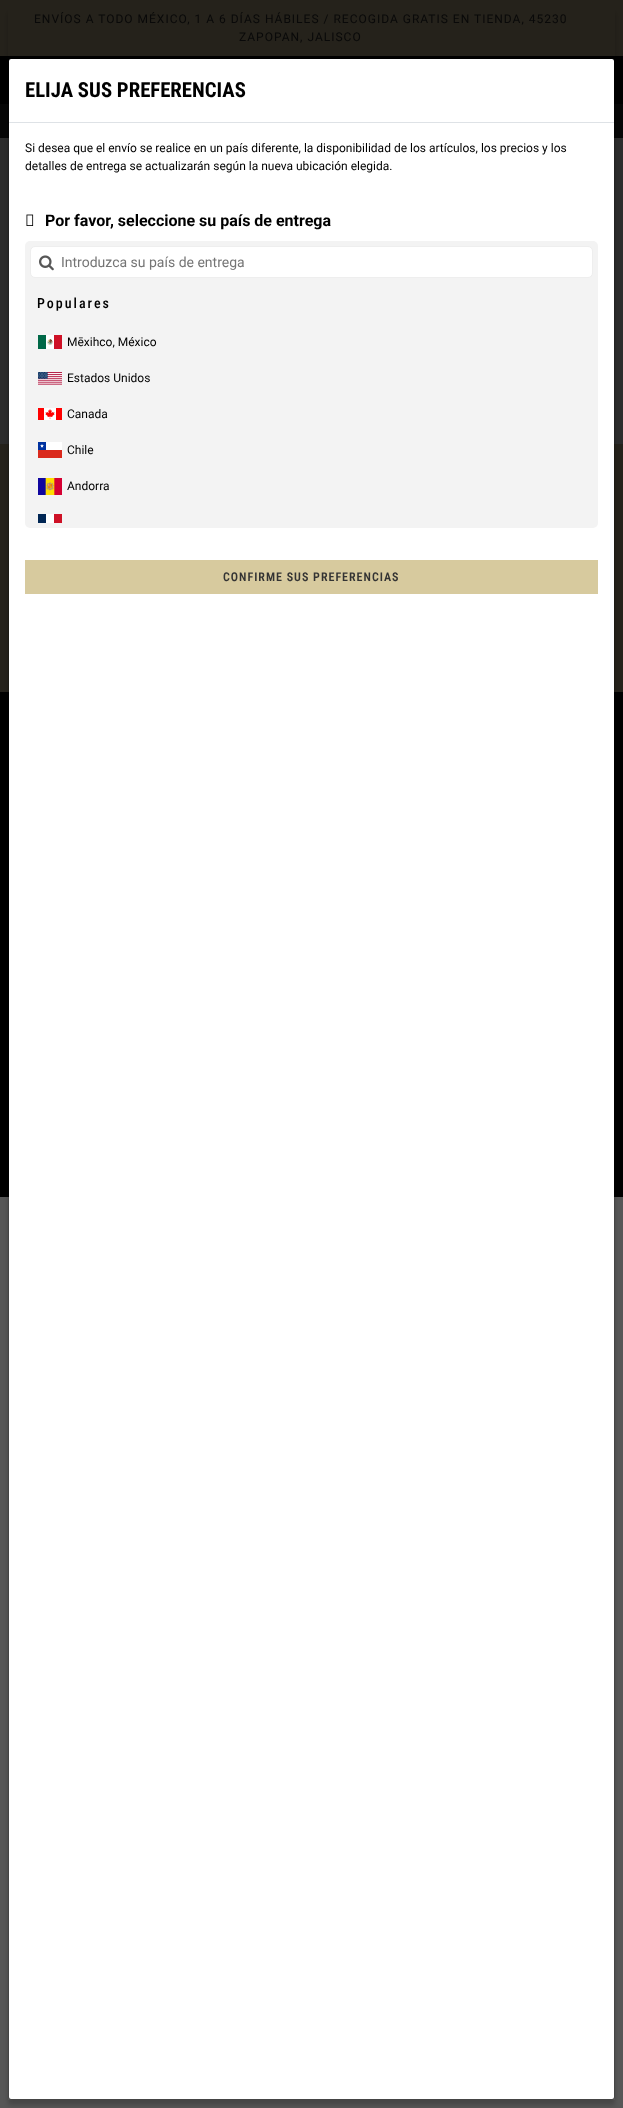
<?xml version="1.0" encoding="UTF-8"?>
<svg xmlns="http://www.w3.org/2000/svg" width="623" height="2108">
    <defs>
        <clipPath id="clip1"><path d="M 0 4 H 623 V 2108 H 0 Z M 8 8 H 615 V 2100 H 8 Z" clip-rule="evenodd"/></clipPath>
        <filter id="blur1" x="-50%" y="-200%" width="200%" height="500%"><feGaussianBlur stdDeviation="2.5"/></filter>
    </defs>
    <rect width="100%" height="100%" fill="#575757"/>
    <rect x="0" y="138" width="623" height="306" fill="#2C2C2C"/>
    <rect x="0" y="56" width="623" height="48" fill="#000000"/>
    <rect x="0" y="0" width="623" height="56" fill="#25221B"/>
    <text x="34" y="23" font-family="Roboto" font-size="12" letter-spacing="1" fill="#090909">ENVÍOS A TODO MÉXICO, 1 A 6 DÍAS HÁBILES / RECOGIDA GRATIS EN TIENDA, 45230</text>
    <text x="239" y="41" font-family="Roboto" font-size="12" letter-spacing="1" fill="#090909">ZAPOPAN, JALISCO</text>
    <rect x="0" y="104" width="623" height="34" fill="#060606"/>
    <rect x="0" y="444" width="623" height="248" fill="#25221B"/>
    <rect x="0" y="692" width="623" height="505" fill="#000000"/>
    <g clip-path="url(#clip1)">
        <rect x="8" y="13" width="607" height="2092" fill="#000000" fill-opacity="0.2" filter="url(#blur1)"/>
    </g>
    <rect x="9" y="59" width="605" height="2040" rx="2" fill="#FFFFFF"/>
    <rect x="8.5" y="58.5" width="606" height="2041" rx="2.5" fill="none" stroke="#000000" stroke-opacity="0.2"/>
    <rect x="9" y="122" width="605" height="1" fill="#DEE2E6"/>
    <text x="25" y="97" font-family="Roboto Condensed" font-size="20.75" font-weight="700" fill="#000000">ELIJA SUS PREFERENCIAS</text>
    <text font-family="Roboto" font-size="12" fill="#000000">
        <tspan x="25" y="152">Si desea que el envío se realice en un país diferente, la disponibilidad de los artículos, los precios y los</tspan>
        <tspan x="25" y="170">detalles de entrega se actualizarán según la nueva ubicación elegida.</tspan>
    </text>
    <image x="26" y="214" width="8" height="12" href="img_01.png"/>
    <text x="45" y="226" font-family="Roboto" font-size="16" font-weight="700" fill="#000000">Por favor, seleccione su país de entrega</text>
    <rect x="25" y="241" width="573" height="287" rx="5" fill="#F3F3F3"/>
    <rect x="30.5" y="246.5" width="562" height="31" rx="4.5" fill="#FFFFFF" stroke="#EEEEEE"/>
    <image x="39" y="255" width="15" height="16" href="img_02.png"/>
    <text x="61" y="267" font-family="Roboto" font-size="14" fill="#757575">Introduzca su país de entrega</text>
    <text x="37" y="308" font-family="Roboto Condensed" font-size="14" font-weight="500" letter-spacing="2" fill="#000000">Populares</text>
    <image x="38" y="335" width="24" height="14" href="img_03.png"/>
    <text x="67" y="346" font-family="Roboto" font-size="12" fill="#000000">Mēxihco, México</text>
    <image x="38" y="372" width="24" height="13" href="img_04.png"/>
    <text x="67" y="382" font-family="Roboto" font-size="12" fill="#000000">Estados Unidos</text>
    <image x="38" y="408" width="24" height="12" href="img_05.png"/>
    <text x="67" y="418" font-family="Roboto" font-size="12" fill="#000000">Canada</text>
    <image x="38" y="442" width="24" height="16" href="img_06.png"/>
    <text x="67" y="454" font-family="Roboto" font-size="12" fill="#000000">Chile</text>
    <image x="38" y="478" width="24" height="17" href="img_07.png"/>
    <text x="67" y="490" font-family="Roboto" font-size="12" fill="#000000">Andorra</text>
    <image x="38" y="514" width="24" height="9" href="img_08.png"/>
    <rect x="25" y="560" width="573" height="34" fill="#D7CA9E"/>
    <text x="223" y="581" font-family="Roboto Condensed" font-size="12" font-weight="600" letter-spacing="1" fill="#333333">CONFIRME SUS PREFERENCIAS</text>
</svg>
